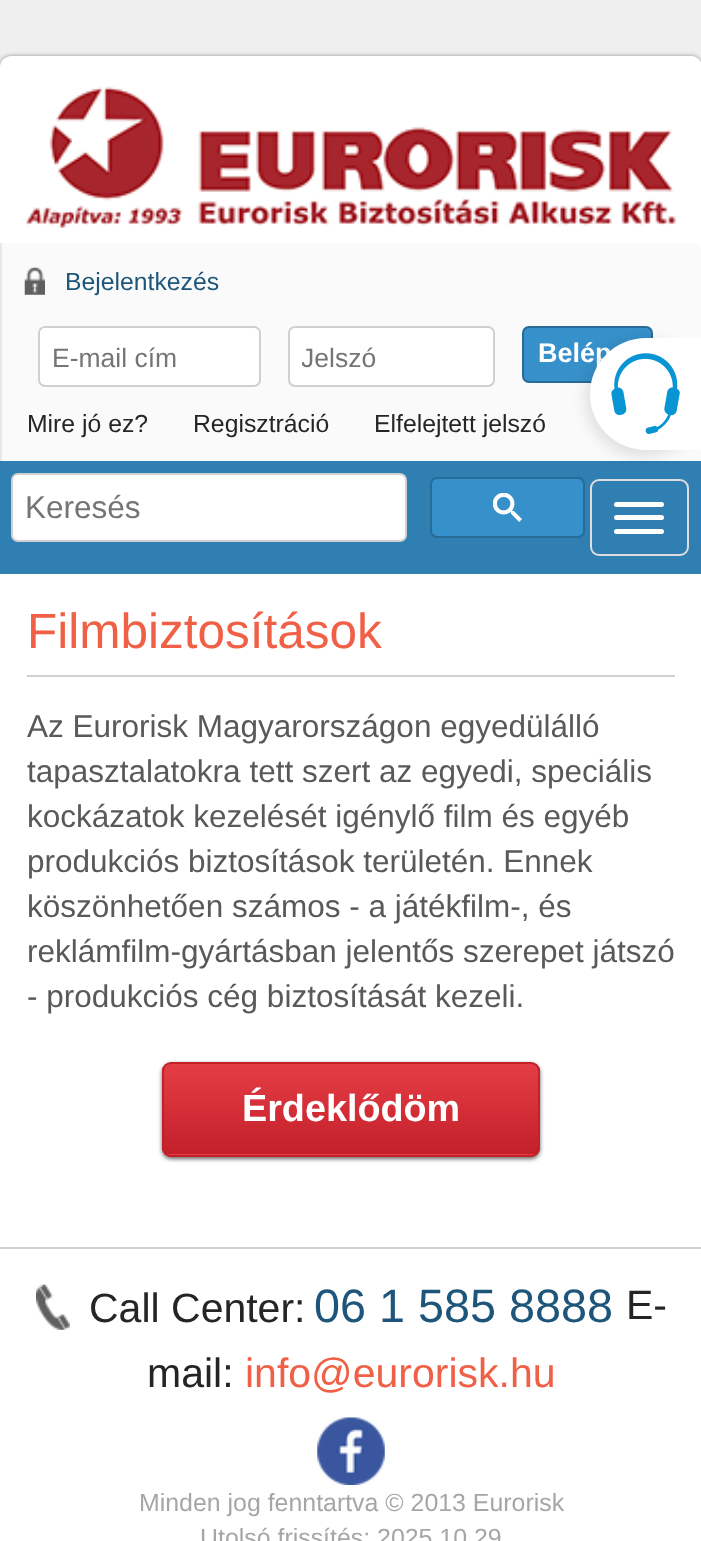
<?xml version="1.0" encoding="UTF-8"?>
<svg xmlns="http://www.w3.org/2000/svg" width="701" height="1541">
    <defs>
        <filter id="blur1" x="-50%" y="-200%" width="200%" height="500%"><feGaussianBlur stdDeviation="2"/></filter>
        <clipPath id="clip1"><rect x="302" y="342" width="180" height="29"/></clipPath>
        <clipPath id="clip2"><rect x="162" y="1062" width="378" height="95" rx="9"/></clipPath>
        <linearGradient id="g1" gradientUnits="userSpaceOnUse" x1="351" y1="1064" x2="351" y2="1154"><stop offset="0" stop-color="#E53D46"/><stop offset="1" stop-color="#C32029"/></linearGradient>
        <linearGradient id="g2" gradientUnits="userSpaceOnUse" x1="351" y1="1154" x2="351" y2="1244"><stop offset="0" stop-color="#E53D46"/><stop offset="1" stop-color="#C32029"/></linearGradient>
        <filter id="blur2" x="-50%" y="-200%" width="200%" height="500%"><feGaussianBlur stdDeviation="7"/></filter>
    </defs>
    <rect width="100%" height="100%" fill="#FFFFFF"/>
    <rect x="0" y="0" width="701" height="67" fill="#EFEFEF"/>
    <rect x="0" y="56" width="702" height="405" rx="11" fill="#919191" filter="url(#blur1)"/>
    <path d="M 11 56 H 691 C 697 56 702 61 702 67 V 461 H 0 V 67 C 0 61 5 56 11 56 Z" fill="#FFFFFF"/>
    <image x="26" y="86" width="650" height="142" href="img_01.png"/>
    <path d="M 0 243 H 691 C 697 243 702 248 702 254 V 461 H 0 Z" fill="#FAFAFA"/>
    <rect x="0" y="243" width="2" height="218" fill="#E7E7E7"/>
    <image x="24" y="267" width="21" height="28" href="img_02.png"/>
    <text x="65" y="290" font-family="Liberation Sans" font-size="24.75" fill="#1D567A">Bejelentkezés</text>
    <rect x="39" y="327" width="221" height="59" rx="6" fill="#FFFFFF" stroke="#D0D0D0" stroke-width="2"/>
    <text x="52" y="367" font-family="Liberation Sans" font-size="26.5" fill="#757575">E-mail cím</text>
    <rect x="289" y="327" width="205" height="59" rx="6" fill="#FFFFFF" stroke="#D0D0D0" stroke-width="2"/>
    <g clip-path="url(#clip1)">
        <text x="301" y="367" font-family="Liberation Sans" font-size="26.5" fill="#757575">Jelszó</text>
    </g>
    <rect x="523" y="327" width="129" height="55" rx="6" fill="#3690C9" stroke="#276B97" stroke-width="2"/>
    <text x="538" y="362" font-family="Liberation Sans" font-size="27" font-weight="700" fill="#FFFFFF">Belép</text>
    <text x="27" y="432" font-family="Liberation Sans" font-size="24.75" fill="#252525">Mire jó ez?</text>
    <text x="193" y="432" font-family="Liberation Sans" font-size="24.75" fill="#252525">Regisztráció</text>
    <text x="374" y="432" font-family="Liberation Sans" font-size="24.75" fill="#252525">Elfelejtett jelszó</text>
    <rect x="0" y="461" width="701" height="113" fill="#2F7FB2"/>
    <rect x="12" y="474" width="394" height="67" rx="6" fill="#FFFFFF" stroke="#D0D0D0" stroke-width="2"/>
    <text x="25" y="518" font-family="Liberation Sans" font-size="31.5" fill="#757575">Keresés</text>
    <rect x="431" y="478" width="153" height="59" rx="6" fill="#3690C9" stroke="#276B97" stroke-width="2"/>
    <image x="493" y="493" width="29" height="29" href="img_03.png"/>
    <rect x="591" y="480" width="97" height="75" rx="8" fill="none" stroke="#DDDDDD" stroke-width="2"/>
    <rect x="614" y="502" width="50" height="5" rx="2.5" fill="#FFFFFF"/>
    <rect x="614" y="515" width="50" height="5" rx="2.5" fill="#FFFFFF"/>
    <rect x="614" y="529" width="50" height="5" rx="2.5" fill="#FFFFFF"/>
    <rect x="27" y="675" width="648" height="2" fill="#D0D0D0"/>
    <text x="27" y="648" font-family="Liberation Sans" font-size="49.5" fill="#F06046">Filmbiztosítások</text>
    <text font-family="Liberation Sans" font-size="31.5" fill="#595959">
        <tspan x="27" y="737">Az Eurorisk Magyarországon egyedülálló</tspan>
        <tspan x="27" y="782">tapasztalatokra tett szert az egyedi, speciális</tspan>
        <tspan x="27" y="827">kockázatok kezelését igénylő film és egyéb</tspan>
        <tspan x="27" y="872">produkciós biztosítások területén. Ennek</tspan>
        <tspan x="27" y="917">köszönhetően számos - a játékfilm-, és</tspan>
        <tspan x="27" y="962">reklámfilm-gyártásban jelentős szerepet játszó</tspan>
        <tspan x="27" y="1007">- produkciós cég biztosítását kezeli.</tspan>
    </text>
    <rect x="162" y="1064" width="378" height="95" rx="9" fill="#000000" fill-opacity="0.6" filter="url(#blur1)"/>
    <g clip-path="url(#clip2)">
        <rect x="162" y="1064" width="378" height="90" fill="url(#g1)"/>
        <rect x="162" y="1154" width="378" height="3" fill="url(#g2)"/>
    </g>
    <rect x="163" y="1063" width="376" height="93" rx="8" fill="none" stroke="#C3202A" stroke-width="2"/>
    <text x="242" y="1121" font-family="Liberation Sans" font-size="37.75" font-weight="700" fill="#FFFFFF">Érdeklődöm</text>
    <rect x="0" y="1247" width="701" height="2" fill="#D0D0D0"/>
    <image x="36" y="1284" width="34" height="46" href="img_04.png"/>
    <text x="89" y="1322" font-family="Liberation Sans" font-size="41" fill="#252525">Call Center:</text>
    <text x="314" y="1322" font-family="Liberation Sans" font-size="46.75" fill="#1D567A">06 1 585 8888</text>
    <text x="626" y="1319" font-family="Liberation Sans" font-size="41" fill="#252525">E-</text>
    <text x="147" y="1387" font-family="Liberation Sans" font-size="41" fill="#252525">mail:</text>
    <text x="245" y="1387" font-family="Liberation Sans" font-size="41" fill="#F06046">info@eurorisk.hu</text>
    <image x="317" y="1417" width="68" height="68" href="img_05.png"/>
    <text x="139" y="1511" font-family="Liberation Sans" font-size="24.9" fill="#A6A6A6">Minden jog fenntartva © 2013 Eurorisk</text>
    <text x="200" y="1546" font-family="Liberation Sans" font-size="24.9" fill="#A6A6A6">Utolsó frissítés: 2025.10.29</text>
    <rect x="585" y="340" width="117" height="117" rx="58.5" fill="#000000" fill-opacity="0.1" filter="url(#blur2)"/>
    <path d="M 646 338 H 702 V 450 H 646 C 615 450 590 425 590 394 C 590 363 615 338 646 338 Z" fill="#FFFFFF"/>
    <image x="611" y="353" width="69" height="81" href="img_06.png"/>
</svg>
